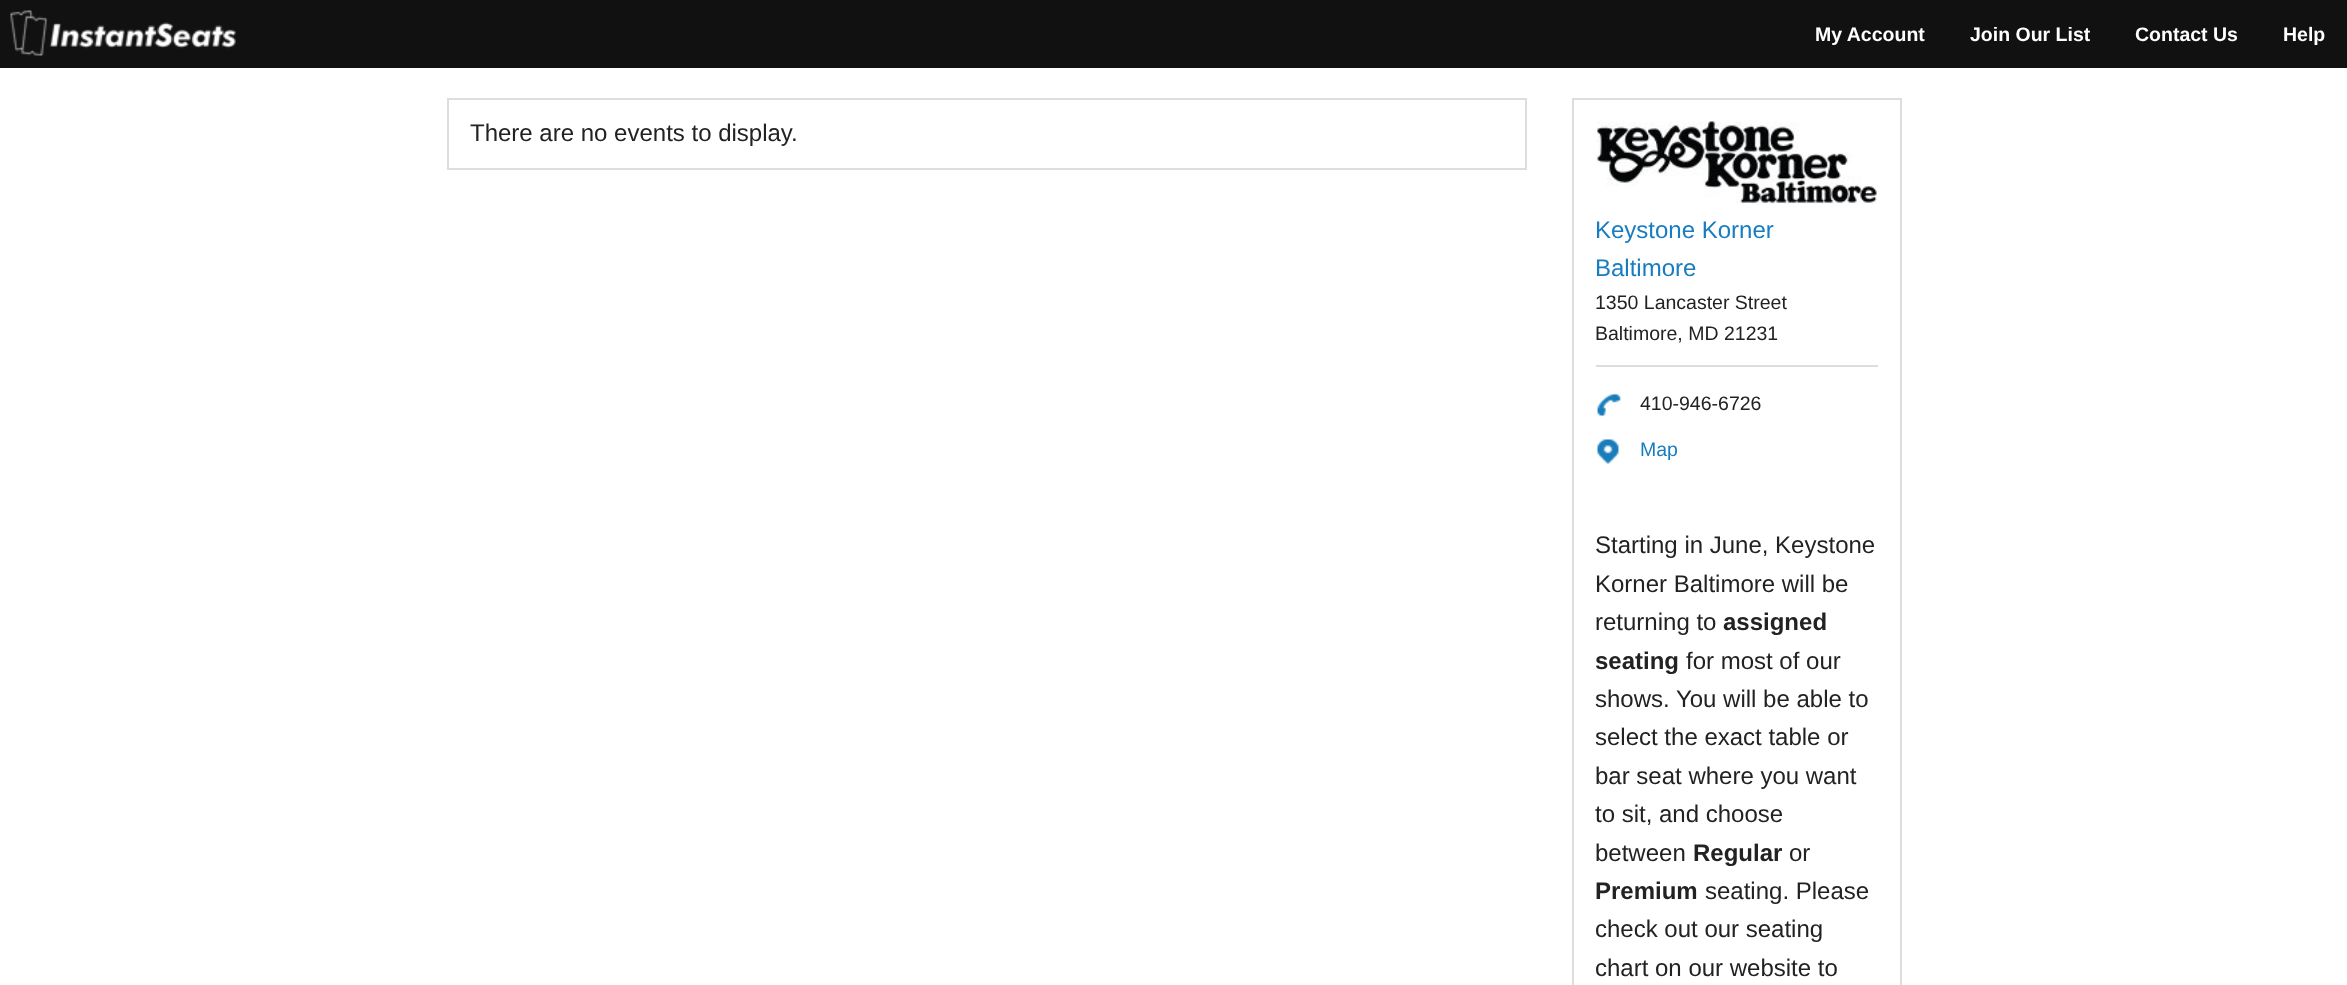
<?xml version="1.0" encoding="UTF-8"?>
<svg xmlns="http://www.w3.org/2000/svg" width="2347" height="985">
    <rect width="100%" height="100%" fill="#FFFFFF"/>
    <rect x="0" y="0" width="2347" height="68" fill="#111111"/>
    <image x="10" y="10" width="226" height="46" href="img_01.png"/>
    <text x="1815" y="41" font-family="Liberation Sans" font-size="19.5" font-weight="700" fill="#FFFFFF">My Account</text>
    <text x="1970" y="41" font-family="Liberation Sans" font-size="19.5" font-weight="700" fill="#FFFFFF">Join Our List</text>
    <text x="2135" y="41" font-family="Liberation Sans" font-size="19.5" font-weight="700" fill="#FFFFFF">Contact Us</text>
    <text x="2283" y="41" font-family="Liberation Sans" font-size="19.5" font-weight="700" fill="#FFFFFF">Help</text>
    <rect x="448" y="99" width="1078" height="70" fill="none" stroke="#DDDDDD" stroke-width="2"/>
    <text x="470" y="141" font-family="Liberation Sans" font-size="24" fill="#222222">There are no events to display.</text>
    <rect x="1573" y="99" width="328" height="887" fill="none" stroke="#DDDDDD" stroke-width="2"/>
    <image x="1596" y="121" width="281" height="83" href="img_02.png"/>
    <text font-family="Liberation Sans" font-size="24" fill="#177CC0">
        <tspan x="1595" y="238">Keystone Korner</tspan>
        <tspan x="1595" y="276">Baltimore</tspan>
    </text>
    <rect x="1596" y="365" width="282" height="2" fill="#DDDDDD"/>
    <text font-family="Liberation Sans" font-size="19.5" fill="#222222">
        <tspan x="1595" y="309">1350 Lancaster Street</tspan>
        <tspan x="1595" y="340">Baltimore, MD 21231</tspan>
    </text>
    <image x="1597" y="393" width="25" height="24" href="img_03.png"/>
    <text x="1640" y="410" font-family="Liberation Sans" font-size="19.5" fill="#222222">410-946-6726</text>
    <image x="1596" y="439" width="23" height="25" href="img_04.png"/>
    <text x="1640" y="456" font-family="Liberation Sans" font-size="19.5" fill="#177CC0">Map</text>
    <text font-family="Liberation Sans" font-size="24" fill="#222222">
        <tspan x="1595" y="553">Starting in June, Keystone</tspan>
        <tspan x="1595" y="592">Korner Baltimore will be</tspan>
        <tspan x="1595" y="630">returning to</tspan>
    </text>
    <text x="1723" y="630" font-family="Liberation Sans" font-size="24" font-weight="700" fill="#222222">assigned</text>
    <text x="1595" y="669" font-family="Liberation Sans" font-size="24" font-weight="700" fill="#222222">seating</text>
    <text x="1686" y="669" font-family="Liberation Sans" font-size="24" fill="#222222">for most of our</text>
    <text font-family="Liberation Sans" font-size="24" fill="#222222">
        <tspan x="1595" y="707">shows. You will be able to</tspan>
        <tspan x="1595" y="745">select the exact table or</tspan>
        <tspan x="1595" y="784">bar seat where you want</tspan>
        <tspan x="1595" y="822">to sit, and choose</tspan>
        <tspan x="1595" y="861">between</tspan>
    </text>
    <text x="1693" y="861" font-family="Liberation Sans" font-size="24" font-weight="700" fill="#222222">Regular</text>
    <text x="1789" y="861" font-family="Liberation Sans" font-size="24" fill="#222222">or</text>
    <text x="1595" y="899" font-family="Liberation Sans" font-size="24" font-weight="700" fill="#222222">Premium</text>
    <text x="1705" y="899" font-family="Liberation Sans" font-size="24" fill="#222222">seating. Please</text>
    <text font-family="Liberation Sans" font-size="24" fill="#222222">
        <tspan x="1595" y="937">check out our seating</tspan>
        <tspan x="1595" y="976">chart on our website to</tspan>
    </text>
</svg>
